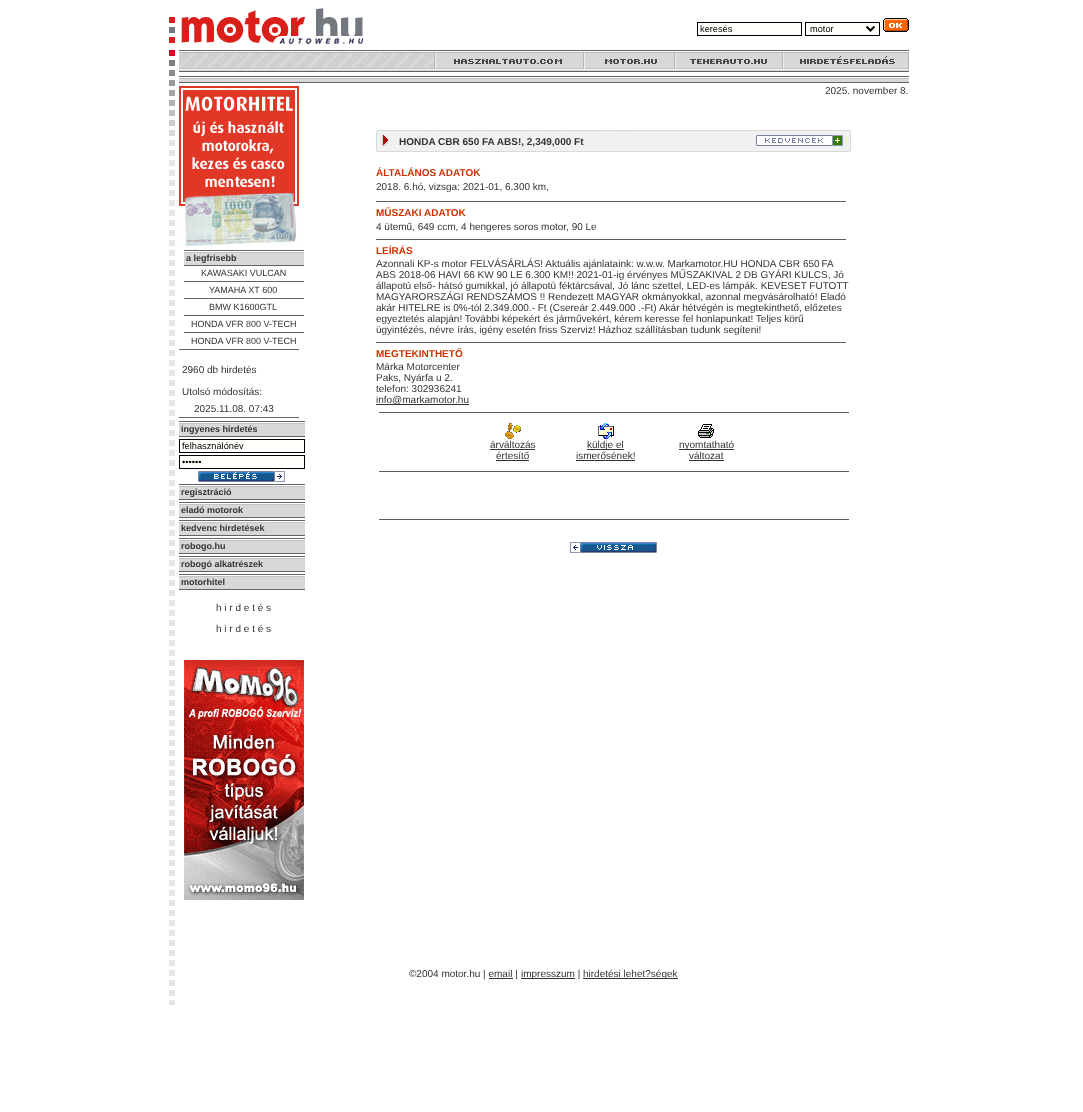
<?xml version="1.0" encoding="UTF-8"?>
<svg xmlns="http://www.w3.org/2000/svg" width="1083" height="1112">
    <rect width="100%" height="100%" fill="#FFFFFF"/>
    <image x="169" y="8" width="195" height="37" href="img_01.png"/>
    <rect x="697.5" y="22.5" width="104" height="13" fill="#FFFFFC" stroke="#000000"/>
    <text x="700" y="32" font-family="Liberation Sans" font-size="9.25" fill="#000000">keresés</text>
    <rect x="805.5" y="22.5" width="74" height="13" fill="#FFFFFC" stroke="#000000"/>
    <path d="M 866.5 26.5 L 870.5 30.5 L 874.5 26.5" fill="none" stroke="#000000" stroke-width="2"/>
    <text x="810" y="32" font-family="Liberation Sans" font-size="9.25" fill="#000000">motor</text>
    <image x="883" y="18" width="26" height="14" href="img_02.png"/>
    <image x="169" y="136" width="6" height="869" href="img_03.png"/>
    <image x="169" y="50" width="6" height="86" href="img_04.png"/>
    <image x="179" y="50" width="256" height="22" href="img_05.png"/>
    <image x="435" y="50" width="149" height="22" href="img_06.png"/>
    <image x="584" y="50" width="91" height="22" href="img_07.png"/>
    <image x="675" y="50" width="108" height="22" href="img_08.png"/>
    <image x="783" y="50" width="126" height="22" href="img_09.png"/>
    <image x="179" y="76" width="730" height="7" href="img_10.png"/>
    <image x="179" y="86" width="120" height="160" href="img_11.png"/>
    <image x="184" y="250" width="120" height="16" href="img_12.png"/>
    <text x="186" y="261" font-family="Liberation Sans" font-size="9" font-weight="700" fill="#333333">a legfrisebb</text>
    <text x="201" y="276" font-family="Liberation Sans" font-size="9" fill="#333333">KAWASAKI VULCAN</text>
    <rect x="184" y="281" width="120" height="1" fill="#636363"/>
    <text x="209" y="293" font-family="Liberation Sans" font-size="9" fill="#333333">YAMAHA XT 600</text>
    <rect x="184" y="298" width="120" height="1" fill="#636363"/>
    <text x="209" y="310" font-family="Liberation Sans" font-size="9" fill="#333333">BMW K1600GTL</text>
    <rect x="184" y="315" width="120" height="1" fill="#636363"/>
    <text x="191" y="327" font-family="Liberation Sans" font-size="9" fill="#333333">HONDA VFR 800 V-TECH</text>
    <rect x="184" y="332" width="120" height="1" fill="#636363"/>
    <text x="191" y="344" font-family="Liberation Sans" font-size="9" fill="#333333">HONDA VFR 800 V-TECH</text>
    <rect x="179" y="349" width="120" height="1" fill="#636363"/>
    <text x="182" y="373" font-family="Liberation Sans" font-size="10" fill="#333333">2960 db hirdetés</text>
    <text x="182" y="395" font-family="Liberation Sans" font-size="10" fill="#333333">Utolsó módosítás:</text>
    <text x="194" y="412" font-family="Liberation Sans" font-size="10" fill="#333333">2025.11.08. 07:43</text>
    <rect x="179" y="417" width="120" height="1" fill="#636363"/>
    <image x="179" y="421" width="126" height="16" href="img_13.png"/>
    <text x="181" y="432" font-family="Liberation Sans" font-size="9" font-weight="700" fill="#333333">ingyenes hirdetés</text>
    <rect x="179.5" y="439.5" width="125" height="13" fill="#FFFFFC" stroke="#000000"/>
    <text x="182" y="449" font-family="Liberation Sans" font-size="9.25" fill="#000000">felhasználónév</text>
    <rect x="179.5" y="455.5" width="125" height="13" fill="#FFFFFC" stroke="#000000"/>
    <text x="182" y="465" font-family="Liberation Sans" font-size="9.25" fill="#000000">••••••</text>
    <image x="198" y="471" width="87" height="11" href="img_14.png"/>
    <image x="179" y="484" width="126" height="16" href="img_13.png"/>
    <text x="181" y="495" font-family="Liberation Sans" font-size="9" font-weight="700" fill="#333333">regisztráció</text>
    <image x="179" y="502" width="126" height="16" href="img_13.png"/>
    <text x="181" y="513" font-family="Liberation Sans" font-size="9" font-weight="700" fill="#333333">eladó motorok</text>
    <image x="179" y="520" width="126" height="16" href="img_13.png"/>
    <text x="181" y="531" font-family="Liberation Sans" font-size="9" font-weight="700" fill="#333333">kedvenc hirdetések</text>
    <image x="179" y="538" width="126" height="16" href="img_13.png"/>
    <text x="181" y="549" font-family="Liberation Sans" font-size="9" font-weight="700" fill="#333333">robogo.hu</text>
    <image x="179" y="556" width="126" height="16" href="img_13.png"/>
    <text x="181" y="567" font-family="Liberation Sans" font-size="9" font-weight="700" fill="#333333">robogó alkatrészek</text>
    <image x="179" y="574" width="126" height="16" href="img_13.png"/>
    <text x="181" y="585" font-family="Liberation Sans" font-size="9" font-weight="700" fill="#333333">motorhitel</text>
    <text x="216" y="611" font-family="Liberation Sans" font-size="10" fill="#333333">h i r d e t é s</text>
    <text x="216" y="632" font-family="Liberation Sans" font-size="10" fill="#333333">h i r d e t é s</text>
    <image x="184" y="660" width="120" height="240" href="img_15.png"/>
    <text x="825" y="94" font-family="Liberation Sans" font-size="10" fill="#333333">2025. november 8.</text>
    <image x="376" y="130" width="475" height="22" href="img_16.png"/>
    <text x="399" y="145" font-family="Liberation Sans" font-size="10" font-weight="700" fill="#333333">HONDA CBR 650 FA ABS!, 2,349,000 Ft</text>
    <image x="756" y="135" width="87" height="11" href="img_17.png"/>
    <text x="376" y="176" font-family="Liberation Sans" font-size="10" font-weight="700" fill="#CC3300">ÁLTALÁNOS ADATOK</text>
    <text x="376" y="190" font-family="Liberation Sans" font-size="10" fill="#333333">2018. 6.hó, vizsga: 2021-01, 6.300 km,</text>
    <rect x="376" y="201" width="470" height="1" fill="#5D5C5C"/>
    <text x="376" y="216" font-family="Liberation Sans" font-size="10" font-weight="700" fill="#CC3300">MŰSZAKI ADATOK</text>
    <text x="376" y="230" font-family="Liberation Sans" font-size="10" fill="#333333">4 ütemű, 649 ccm, 4 hengeres soros motor, 90 Le</text>
    <rect x="376" y="239" width="470" height="1" fill="#5D5C5C"/>
    <text x="376" y="254" font-family="Liberation Sans" font-size="10" font-weight="700" fill="#CC3300">LEÍRÁS</text>
    <text x="376" y="267" font-family="Liberation Sans" font-size="10" fill="#333333">Azonnali KP-s motor FELVÁSÁRLÁS! Aktuális ajánlataink: w.w.w. Markamotor.HU HONDA CBR</text>
    <text x="803" y="267" word-spacing="-1" font-family="Liberation Sans" font-size="10" fill="#333333">650 FA</text>
    <text font-family="Liberation Sans" font-size="10" fill="#333333">
        <tspan x="376" y="278">ABS 2018-06 HAVI 66 KW 90 LE 6.300 KM!! 2021-01-ig érvényes MŰSZAKIVAL 2 DB GYÁRI KULCS, Jó</tspan>
        <tspan x="376" y="289">állapotú első- hátsó gumikkal, jó állapotú féktárcsával, Jó lánc szettel, LED-es lámpák. KEVESET FUTOTT</tspan>
        <tspan x="376" y="300">MAGYARORSZÁGI RENDSZÁMOS !! Rendezett MAGYAR okmányokkal, azonnal megvásárolható! Eladó</tspan>
        <tspan x="376" y="311">akár HITELRE is 0%-tól 2.349.000.- Ft (Csereár 2.449.000 .-Ft) Akár hétvégén is megtekinthető, előzetes</tspan>
        <tspan x="376" y="322">egyeztetés alapján! További képekért és járművekért, kérem keresse fel honlapunkat! Teljes körű</tspan>
        <tspan x="376" y="333">ügyintézés, névre írás, igény esetén friss Szerviz! Házhoz szállításban tudunk segíteni!</tspan>
    </text>
    <rect x="376" y="342" width="470" height="1" fill="#5D5C5C"/>
    <text x="376" y="357" font-family="Liberation Sans" font-size="10" font-weight="700" fill="#CC3300">MEGTEKINTHETŐ</text>
    <text font-family="Liberation Sans" font-size="10" fill="#333333">
        <tspan x="376" y="370">Márka Motorcenter</tspan>
        <tspan x="376" y="381">Paks, Nyárfa u 2.</tspan>
        <tspan x="376" y="392">telefon: 302936241</tspan>
    </text>
    <rect x="376" y="404" width="93" height="1" fill="#333333"/>
    <text x="376" y="403" font-family="Liberation Sans" font-size="10" fill="#333333">info@markamotor.hu</text>
    <rect x="379" y="412" width="470" height="1" fill="#5D5C5C"/>
    <image x="505" y="423" width="16" height="16" href="img_18.png"/>
    <text x="490" y="448" font-family="Liberation Sans" font-size="10" fill="#333333">árváltozás</text>
    <rect x="490" y="449" width="45" height="1" fill="#333333"/>
    <text x="496" y="459" font-family="Liberation Sans" font-size="10" fill="#333333">értesítő</text>
    <rect x="496" y="460" width="33" height="1" fill="#333333"/>
    <image x="598" y="423" width="16" height="16" href="img_19.png"/>
    <rect x="587" y="449" width="37" height="1" fill="#333333"/>
    <text x="587" y="448" font-family="Liberation Sans" font-size="10" fill="#333333">küldje el</text>
    <text x="576" y="459" font-family="Liberation Sans" font-size="10" fill="#333333">ismerősének!</text>
    <rect x="576" y="460" width="59" height="1" fill="#333333"/>
    <image x="698" y="424" width="16" height="14" href="img_20.png"/>
    <rect x="679" y="449" width="55" height="1" fill="#333333"/>
    <text x="679" y="448" font-family="Liberation Sans" font-size="10" fill="#333333">nyomtatható</text>
    <text x="689" y="459" font-family="Liberation Sans" font-size="10" fill="#333333">változat</text>
    <rect x="689" y="460" width="35" height="1" fill="#333333"/>
    <rect x="379" y="471" width="470" height="1" fill="#5D5C5C"/>
    <rect x="379" y="519" width="470" height="1" fill="#5D5C5C"/>
    <image x="570" y="542" width="87" height="11" href="img_21.png"/>
    <text x="409" y="977" font-family="Liberation Sans" font-size="10" fill="#333333">©2004 motor.hu | email |</text>
    <rect x="521" y="978" width="54" height="1" fill="#333333"/>
    <text x="521" y="977" font-family="Liberation Sans" font-size="10" fill="#333333">impresszum |</text>
    <rect x="583" y="978" width="95" height="1" fill="#333333"/>
    <text x="583" y="977" font-family="Liberation Sans" font-size="10" fill="#333333">hirdetési lehet?ségek</text>
    <rect x="489" y="978" width="24" height="1" fill="#333333"/>
</svg>
